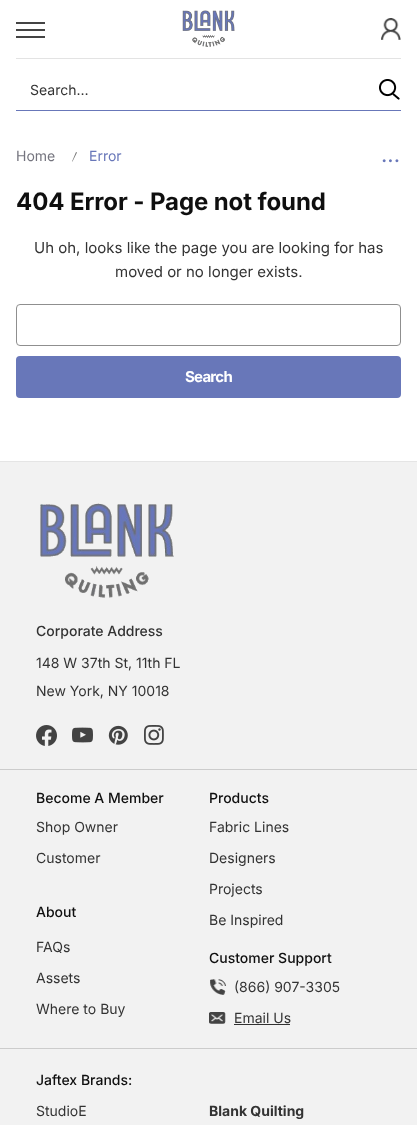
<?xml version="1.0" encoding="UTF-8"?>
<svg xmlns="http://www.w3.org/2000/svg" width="417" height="1125">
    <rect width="100%" height="100%" fill="#FFFFFF"/>
    <rect x="16" y="29" width="29" height="2" fill="#444444"/>
    <rect x="16" y="22" width="29" height="2" fill="#444444"/>
    <rect x="16" y="36" width="29" height="2" fill="#444444"/>
    <image x="182" y="10" width="53" height="37" href="img_01.png"/>
    <image x="381" y="18" width="20" height="22" href="img_02.png"/>
    <rect x="16" y="58" width="385" height="1" fill="#E3E3E3"/>
    <image x="379" y="79" width="21" height="21" href="img_03.png"/>
    <rect x="16" y="110" width="385" height="1" fill="#6877B9"/>
    <text x="30" y="95" font-family="Inter" font-size="14" fill="#333333">Search…</text>
    <text x="16" y="161" font-family="Inter" font-size="14" fill="#74747E">Home</text>
    <path d="M 76 152 L 77 152.5 L 72.5 161.5 H 72 Z" fill="#757575"/>
    <text x="89" y="161" font-family="Inter" font-size="14" fill="#6877B9">Error</text>
    <text x="381" y="162" font-family="Inter" font-size="22" fill="#6877B9">...</text>
    <text x="16" y="210" font-family="Inter" font-size="24" font-weight="700" letter-spacing="-0.1" fill="#0F0F0F">404 Error - Page not found</text>
    <text x="34" y="253" font-family="Inter" font-size="15" fill="#333333">Uh oh, looks like the page you are looking for has</text>
    <text x="115" y="277" font-family="Inter" font-size="15" fill="#333333">moved or no longer exists.</text>
    <rect x="16.5" y="304.5" width="384" height="41" rx="3.5" fill="none" stroke="#8F8F8F"/>
    <rect x="16" y="356" width="385" height="42" rx="4" fill="#6877B9"/>
    <text x="185" y="382" font-family="Inter" font-size="15" font-weight="700" letter-spacing="-0.75" fill="#FFFFFF">Search</text>
    <rect x="0" y="462" width="417" height="663" fill="#F2F2F2"/>
    <rect x="0" y="461" width="417" height="1" fill="#E5E5E5"/>
    <rect x="0" y="769" width="417" height="1" fill="#CCCCCC"/>
    <image x="40" y="503" width="134" height="95" href="img_04.png"/>
    <text x="36" y="636" font-family="Inter" font-size="14" font-weight="500" fill="#333333">Corporate Address</text>
    <text x="36" y="668" font-family="Inter" font-size="14" fill="#333333">148 W 37th St, 11th FL</text>
    <text x="36" y="696" font-family="Inter" font-size="14" fill="#333333">New York, NY 10018</text>
    <image x="36" y="725" width="21" height="21" href="img_05.png"/>
    <image x="72" y="727" width="21" height="16" href="img_06.png"/>
    <image x="108" y="725" width="20" height="20" href="img_07.png"/>
    <image x="144" y="725" width="20" height="20" href="img_08.png"/>
    <text x="36" y="803" font-family="Inter" font-size="14" font-weight="500" fill="#0F0F0F">Become A Member</text>
    <text x="36" y="832" font-family="Inter" font-size="14" fill="#333333">Shop Owner</text>
    <text x="36" y="863" font-family="Inter" font-size="14" fill="#333333">Customer</text>
    <text x="36" y="917" font-family="Inter" font-size="14" font-weight="500" fill="#0F0F0F">About</text>
    <text x="36" y="952" font-family="Inter" font-size="14" fill="#333333">FAQs</text>
    <text x="36" y="983" font-family="Inter" font-size="14" fill="#333333">Assets</text>
    <text x="36" y="1014" font-family="Inter" font-size="14" fill="#333333">Where to Buy</text>
    <text x="209" y="803" font-family="Inter" font-size="14" font-weight="500" fill="#0F0F0F">Products</text>
    <text x="209" y="832" font-family="Inter" font-size="14" fill="#333333">Fabric Lines</text>
    <text x="209" y="863" font-family="Inter" font-size="14" fill="#333333">Designers</text>
    <text x="209" y="894" font-family="Inter" font-size="14" fill="#333333">Projects</text>
    <text x="209" y="925" font-family="Inter" font-size="14" fill="#333333">Be Inspired</text>
    <text x="209" y="963" font-family="Inter" font-size="14" font-weight="500" fill="#0F0F0F">Customer Support</text>
    <image x="210" y="979" width="16" height="16" href="img_09.png"/>
    <text x="234" y="992" font-family="Inter" font-size="14" fill="#333333">(866) 907-3305</text>
    <image x="209" y="1012" width="17" height="12" href="img_10.png"/>
    <text x="234" y="1023" font-family="Inter" font-size="14" fill="#333333">Email Us</text>
    <rect x="234" y="1024" width="56" height="1" fill="#313131"/>
    <rect x="0" y="1048" width="417" height="1" fill="#CCCCCC"/>
    <text x="36" y="1085" font-family="Inter" font-size="14" font-weight="500" fill="#0F0F0F">Jaftex Brands:</text>
    <text x="36" y="1116" font-family="Inter" font-size="14" fill="#333333">StudioE</text>
    <text x="209" y="1116" font-family="Inter" font-size="14" font-weight="700" fill="#333333">Blank Quilting</text>
</svg>
